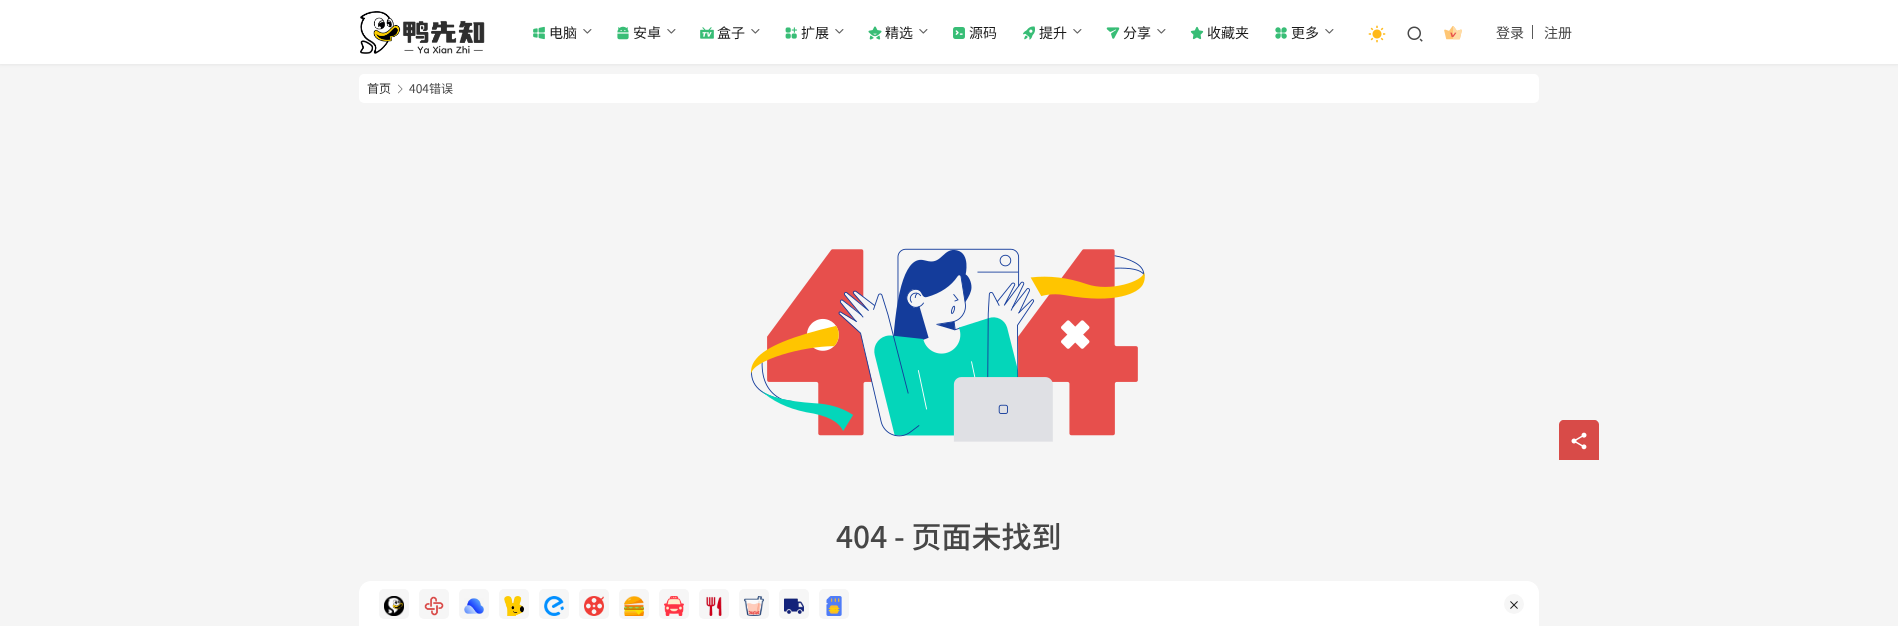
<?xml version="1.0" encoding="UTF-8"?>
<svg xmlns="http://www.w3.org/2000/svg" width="1898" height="626">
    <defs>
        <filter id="blur1" x="-50%" y="-200%" width="200%" height="500%"><feGaussianBlur stdDeviation="1.5"/></filter>
    </defs>
    <rect width="100%" height="100%" fill="#F5F5F5"/>
    <rect x="-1" y="-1" width="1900" height="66" fill="#1A1A1A" fill-opacity="0.06" filter="url(#blur1)"/>
    <rect x="0" y="0" width="1898" height="64" fill="#FFFFFF"/>
    <image x="360" y="11" width="125" height="43" href="img_01.png"/>
    <image x="533" y="26" width="12" height="14" href="img_02.png"/>
    <text x="549" y="38" font-family="Noto Sans CJK SC" font-size="14" fill="#1A1A1A">电脑</text>
    <image x="583" y="29" width="9" height="5" href="img_03.png"/>
    <image x="617" y="26" width="12" height="14" href="img_04.png"/>
    <text x="633" y="38" font-family="Noto Sans CJK SC" font-size="14" fill="#1A1A1A">安卓</text>
    <image x="667" y="29" width="9" height="5" href="img_03.png"/>
    <image x="700" y="27" width="14" height="12" href="img_05.png"/>
    <text x="717" y="38" font-family="Noto Sans CJK SC" font-size="14" fill="#1A1A1A">盒子</text>
    <image x="751" y="29" width="9" height="5" href="img_03.png"/>
    <image x="785" y="27" width="13" height="12" href="img_06.png"/>
    <text x="801" y="38" font-family="Noto Sans CJK SC" font-size="14" fill="#1A1A1A">扩展</text>
    <image x="835" y="29" width="9" height="5" href="img_03.png"/>
    <image x="868" y="26" width="14" height="14" href="img_07.png"/>
    <text x="885" y="38" font-family="Noto Sans CJK SC" font-size="14" fill="#1A1A1A">精选</text>
    <image x="919" y="29" width="9" height="5" href="img_03.png"/>
    <image x="953" y="27" width="12" height="12" href="img_08.png"/>
    <text x="969" y="38" font-family="Noto Sans CJK SC" font-size="14" fill="#1A1A1A">源码</text>
    <image x="1023" y="26" width="12" height="14" href="img_09.png"/>
    <text x="1039" y="38" font-family="Noto Sans CJK SC" font-size="14" fill="#1A1A1A">提升</text>
    <image x="1073" y="29" width="9" height="5" href="img_03.png"/>
    <image x="1106" y="27" width="14" height="12" href="img_10.png"/>
    <text x="1123" y="38" font-family="Noto Sans CJK SC" font-size="14" fill="#1A1A1A">分享</text>
    <image x="1157" y="29" width="9" height="5" href="img_03.png"/>
    <image x="1190" y="26" width="14" height="14" href="img_11.png"/>
    <text x="1207" y="38" font-family="Noto Sans CJK SC" font-size="14" fill="#1A1A1A">收藏夹</text>
    <image x="1275" y="27" width="12" height="12" href="img_12.png"/>
    <text x="1291" y="38" font-family="Noto Sans CJK SC" font-size="14" fill="#1A1A1A">更多</text>
    <image x="1325" y="29" width="9" height="5" href="img_03.png"/>
    <image x="1368" y="25" width="18" height="18" href="img_13.png"/>
    <image x="1407" y="26" width="16" height="16" href="img_14.png"/>
    <image x="1444" y="26" width="18" height="14" href="img_15.png"/>
    <text x="1496" y="38" font-family="Noto Sans CJK SC" font-size="14" fill="#464646">登录</text>
    <rect x="1532" y="25" width="1" height="14" fill="#5A5A5A"/>
    <text x="1544" y="38" font-family="Noto Sans CJK SC" font-size="14" fill="#464646">注册</text>
    <rect x="359" y="74" width="1180" height="29" rx="5" fill="#FFFFFF"/>
    <text x="367" y="93" font-family="Noto Sans CJK SC" font-size="12" fill="#333333">首页</text>
    <image x="398" y="84" width="5" height="10" href="img_16.png"/>
    <text x="409" y="93" font-family="Noto Sans CJK SC" font-size="12" fill="#464646">404错误</text>
    <image x="751" y="248" width="394" height="194" href="img_17.png"/>
    <text x="836" y="548" font-family="Noto Sans CJK SC" font-size="30" font-weight="500" fill="#464646">404 - 页面未找到</text>
    <path d="M 371 581 H 1527 C 1533.5 581 1539 586.5 1539 593 V 626 H 359 V 593 C 359 586.5 364.5 581 371 581 Z" fill="#FFFFFF"/>
    <rect x="379" y="589" width="30" height="30" rx="5" fill="#F6F6F6"/>
    <image x="384" y="596" width="20" height="20" href="img_18.png"/>
    <rect x="419" y="589" width="30" height="30" rx="5" fill="#F6F6F6"/>
    <image x="424" y="596" width="20" height="20" href="img_19.png"/>
    <rect x="459" y="589" width="30" height="30" rx="5" fill="#F6F6F6"/>
    <image x="464" y="598" width="20" height="16" href="img_20.png"/>
    <rect x="499" y="589" width="30" height="30" rx="5" fill="#F6F6F6"/>
    <image x="504" y="596" width="20" height="20" href="img_21.png"/>
    <rect x="539" y="589" width="30" height="30" rx="5" fill="#F6F6F6"/>
    <image x="544" y="596" width="20" height="20" href="img_22.png"/>
    <rect x="579" y="589" width="30" height="30" rx="5" fill="#F6F6F6"/>
    <image x="584" y="596" width="20" height="20" href="img_23.png"/>
    <rect x="619" y="589" width="30" height="30" rx="5" fill="#F6F6F6"/>
    <image x="624" y="596" width="20" height="20" href="img_24.png"/>
    <rect x="659" y="589" width="30" height="30" rx="5" fill="#F6F6F6"/>
    <image x="664" y="596" width="20" height="20" href="img_25.png"/>
    <rect x="699" y="589" width="30" height="30" rx="5" fill="#F6F6F6"/>
    <image x="706" y="596" width="16" height="20" href="img_26.png"/>
    <rect x="739" y="589" width="30" height="30" rx="5" fill="#F6F6F6"/>
    <image x="744" y="596" width="20" height="20" href="img_27.png"/>
    <rect x="779" y="589" width="30" height="30" rx="5" fill="#F6F6F6"/>
    <image x="784" y="598" width="20" height="16" href="img_28.png"/>
    <rect x="819" y="589" width="30" height="30" rx="5" fill="#F6F6F6"/>
    <image x="826" y="596" width="16" height="20" href="img_29.png"/>
    <circle cx="1514" cy="604" r="10" fill="#F6F6F6"/>
    <image x="1510" y="601" width="8" height="8" href="img_30.png"/>
    <path d="M 1564 420 H 1594 C 1597 420 1599 422 1599 425 V 460 H 1559 V 425 C 1559 422 1561 420 1564 420 Z" fill="#E74F4C"/>
    <path d="M 1564 420 H 1594 C 1597 420 1599 422 1599 425 V 460 H 1559 V 425 C 1559 422 1561 420 1564 420 Z" fill="#1A1A1A" fill-opacity="0.07"/>
    <image x="1571" y="432" width="16" height="18" href="img_31.png"/>
</svg>
